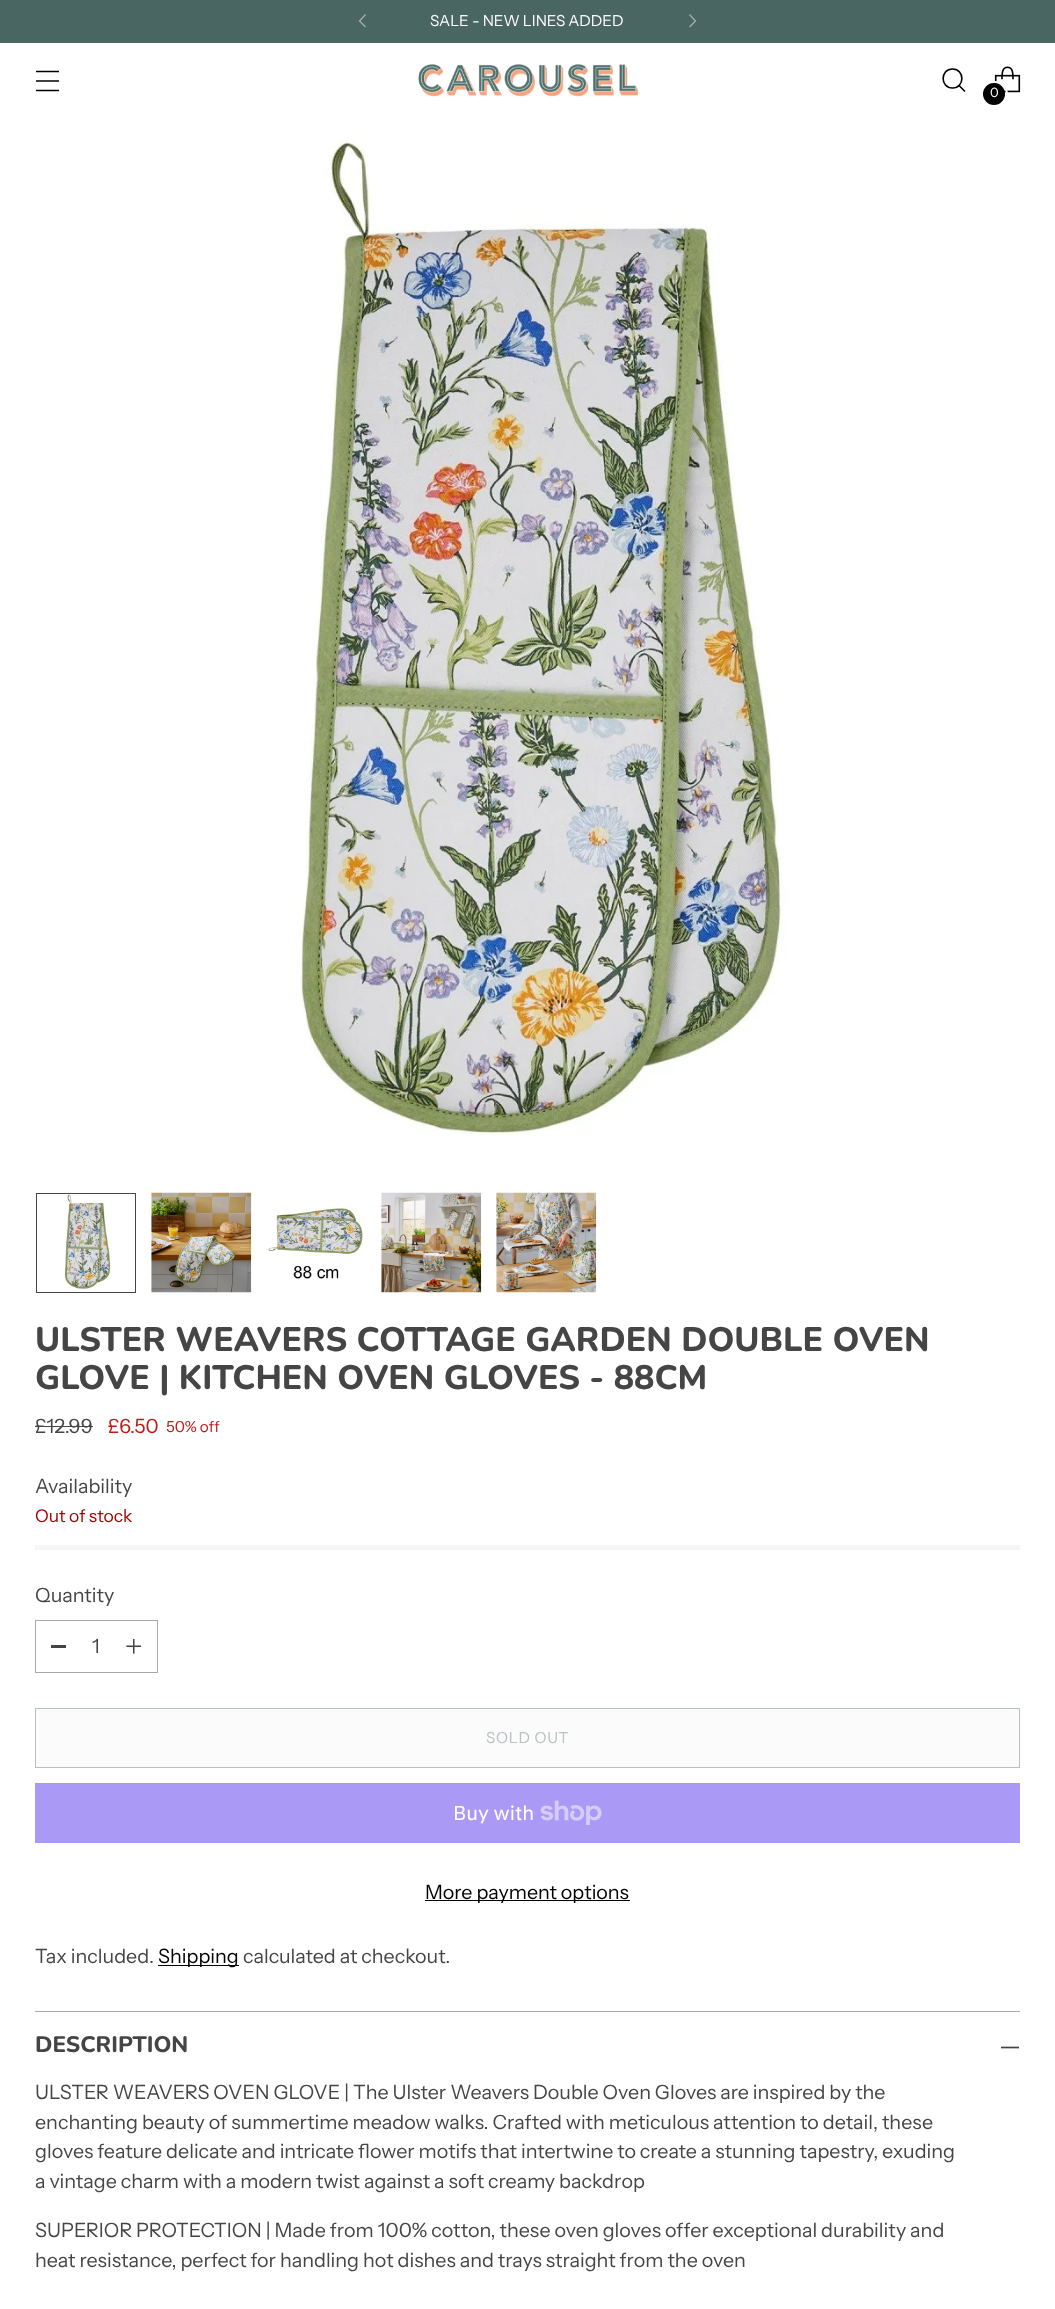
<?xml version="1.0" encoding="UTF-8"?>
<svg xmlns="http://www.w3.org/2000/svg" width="1055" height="2309">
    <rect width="100%" height="100%" fill="#FFFFFF"/>
    <rect x="0" y="0" width="1055" height="43" fill="#496663"/>
    <path d="M 365.5 14.5 L 359.5 21 L 365.5 27" fill="none" stroke="#A4B3B1" stroke-width="1.2"/>
    <path d="M 689.5 27 L 695.5 21 L 689.5 14.5" fill="none" stroke="#A4B3B1" stroke-width="1.2"/>
    <text x="430" y="26" font-family="Instrument Sans" font-size="15.25" fill="#FFFFFF">SALE - NEW LINES ADDED</text>
    <path d="M 36 81 H 59 M 36 71.5 H 59 M 36 90.5 H 59" fill="none" stroke="#000000" stroke-width="1.6"/>
    <image x="418" y="64" width="220" height="33" href="img_01.png"/>
    <path d="M 952.5 88 C 965 88 965 69 952.5 69 C 940 69 940 88 952.5 88 Z" fill="none" stroke="#000000" stroke-width="1.6" stroke-linecap="round"/>
    <path d="M 959 85.5 L 965 91.5" fill="none" stroke="#000000" stroke-width="1.6"/>
    <image x="994" y="66" width="27" height="27" href="img_02.png"/>
    <circle cx="994.5" cy="94.5" r="12.5" fill="none" stroke="#FFFFFF" stroke-width="2"/>
    <circle cx="994" cy="94" r="11" fill="#000000"/>
    <text x="990" y="97" font-family="Instrument Sans" font-size="13" fill="#FFFFFF">0</text>
    <image x="300" y="139" width="488" height="997" href="img_03.png"/>
    <image x="64" y="1194" width="47" height="95" href="img_04.png"/>
    <rect x="36.5" y="1193.5" width="99" height="99" fill="none" stroke="#454545"/>
    <image x="151" y="1192" width="101" height="101" href="img_05.png"/>
    <image x="268" y="1208" width="95" height="71" href="img_06.png"/>
    <image x="381" y="1192" width="101" height="101" href="img_07.png"/>
    <image x="496" y="1192" width="101" height="101" href="img_08.png"/>
    <text font-family="Nunito" font-size="33.9" font-weight="800" fill="#454545">
        <tspan x="35" y="1351">ULSTER WEAVERS COTTAGE GARDEN DOUBLE OVEN</tspan>
        <tspan x="35" y="1389">GLOVE | KITCHEN OVEN GLOVES - 88CM</tspan>
    </text>
    <text x="35" y="1433" font-family="Instrument Sans" font-size="19.7" fill="#454545">£12.99</text>
    <rect x="35" y="1426" width="58" height="1" fill="#454545"/>
    <text x="108" y="1433" font-family="Instrument Sans" font-size="19.7" fill="#C31818">£6.50</text>
    <text x="166" y="1432" font-family="Instrument Sans" font-size="15.25" fill="#C31818">50% off</text>
    <text x="35" y="1493" font-family="Instrument Sans" font-size="19.7" fill="#454545">Availability</text>
    <text x="35" y="1522" font-family="Instrument Sans" font-size="17.5" fill="#A70100">Out of stock</text>
    <rect x="35" y="1545" width="985" height="5" fill="#F5F5F5"/>
    <text x="35" y="1602" font-family="Instrument Sans" font-size="19.7" fill="#454545">Quantity</text>
    <rect x="35.5" y="1620.5" width="122" height="52" fill="none" stroke="#AAAAAA"/>
    <rect x="51" y="1645" width="15" height="3" fill="#454545"/>
    <text x="92" y="1653" font-family="Instrument Sans" font-size="19.7" fill="#454545">1</text>
    <image x="126" y="1639" width="15" height="15" href="img_09.png"/>
    <rect x="35.5" y="1708.5" width="984" height="59" fill="#FBFBFB" stroke="#B6C2C1"/>
    <text x="486" y="1743" font-family="Instrument Sans" font-size="15.25" letter-spacing="0.75" fill="#B6C2C1">SOLD OUT</text>
    <rect x="35" y="1783" width="985" height="60" fill="#AA99F5"/>
    <text x="453" y="1820" font-family="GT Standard" font-size="20" fill="#FFFFFF">Buy with</text>
    <image x="540" y="1800" width="62" height="25" href="img_10.png"/>
    <rect x="425" y="1900" width="205" height="1" fill="#000000"/>
    <text x="425" y="1899" font-family="Instrument Sans" font-size="19.7" fill="#000000">More payment options</text>
    <text x="35" y="1963" font-family="Instrument Sans" font-size="19.7" fill="#454545">Tax included.</text>
    <rect x="158" y="1965" width="81" height="1" fill="#000000"/>
    <text x="158" y="1963" font-family="Instrument Sans" font-size="19.7" fill="#000000">Shipping</text>
    <text x="243" y="1963" font-family="Instrument Sans" font-size="19.7" fill="#454545">calculated at checkout.</text>
    <rect x="35" y="2011" width="985" height="1" fill="#AAAAAA"/>
    <text x="35" y="2052" font-family="Nunito" font-size="22.5" font-weight="800" fill="#454545">DESCRIPTION</text>
    <path d="M 1001 2047.5 H 1019" fill="none" stroke="#454545" stroke-width="1.7"/>
    <text font-family="Instrument Sans" font-size="19.7" fill="#454545">
        <tspan x="35" y="2099">ULSTER WEAVERS OVEN GLOVE | The Ulster Weavers Double Oven Gloves are inspired by the</tspan>
        <tspan x="35" y="2129">enchanting beauty of summertime meadow walks. Crafted with meticulous attention to detail, these</tspan>
        <tspan x="35" y="2158">gloves feature delicate and intricate flower motifs that intertwine to create a stunning tapestry, exuding</tspan>
        <tspan x="35" y="2188">a vintage charm with a modern twist against a soft creamy backdrop</tspan>
    </text>
    <text font-family="Instrument Sans" font-size="19.7" fill="#454545">
        <tspan x="35" y="2237">SUPERIOR PROTECTION | Made from 100% cotton, these oven gloves offer exceptional durability and</tspan>
        <tspan x="35" y="2267">heat resistance, perfect for handling hot dishes and trays straight from the oven</tspan>
    </text>
</svg>
